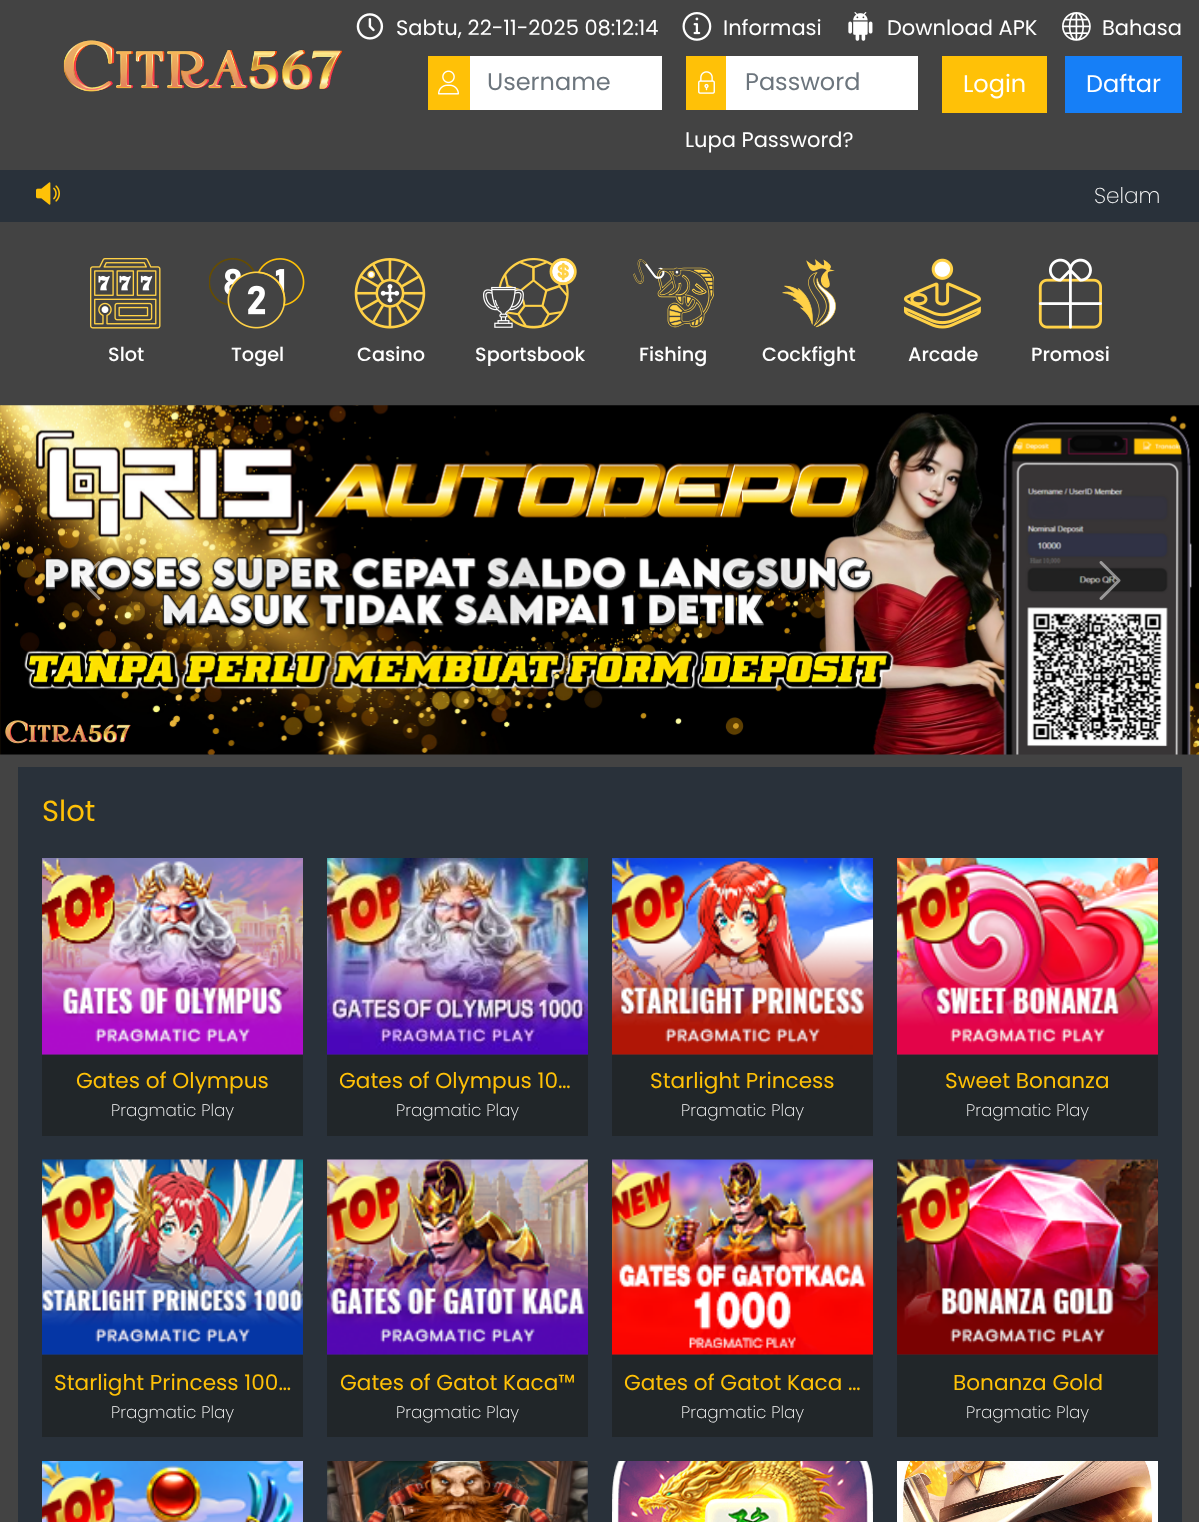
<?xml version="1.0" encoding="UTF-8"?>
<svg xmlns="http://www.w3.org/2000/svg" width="1199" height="1522">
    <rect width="100%" height="100%" fill="#434343"/>
    <image x="63" y="40" width="280" height="52" href="img_01.png"/>
    <image x="356" y="13" width="28" height="27" href="img_02.png"/>
    <text x="396" y="35" font-family="Poppins" font-size="21" fill="#FFFFFF">Sabtu, 22-11-2025 08:12:14</text>
    <image x="682" y="12" width="30" height="29" href="img_03.png"/>
    <text x="723" y="35" font-family="Poppins" font-size="21" fill="#FFFFFF">Informasi</text>
    <image x="848" y="12" width="25" height="29" href="img_04.png"/>
    <text x="887" y="35" font-family="Poppins" font-size="21" fill="#FFFFFF">Download APK</text>
    <image x="1062" y="12" width="29" height="29" href="img_05.png"/>
    <text x="1102" y="35" font-family="Poppins" font-size="21" fill="#FFFFFF">Bahasa</text>
    <rect x="428" y="56" width="42" height="54" fill="#FFC107"/>
    <image x="438" y="70" width="21" height="25" href="img_06.png"/>
    <rect x="470" y="56" width="192" height="54" fill="#FFFFFF"/>
    <text x="487" y="90" font-family="Poppins" font-size="24" fill="#6C757D">Username</text>
    <rect x="686" y="56" width="40" height="54" fill="#FFC107"/>
    <image x="698" y="71" width="17" height="23" href="img_07.png"/>
    <rect x="726" y="56" width="192" height="54" fill="#FFFFFF"/>
    <text x="745" y="90" font-family="Poppins" font-size="24" fill="#6C757D">Password</text>
    <text x="685" y="147" font-family="Poppins" font-size="21" fill="#FFFFFF">Lupa Password?</text>
    <rect x="942" y="56" width="105" height="57" fill="#FFC107"/>
    <text x="963" y="92" font-family="Poppins" font-size="24" fill="#FFFFFF">Login</text>
    <rect x="1065" y="56" width="117" height="57" fill="#167FF7"/>
    <text x="1086" y="92" font-family="Poppins" font-size="24" fill="#FFFFFF">Daftar</text>
    <rect x="0" y="170" width="1199" height="52" fill="#29313A"/>
    <image x="36" y="182" width="24" height="23" href="img_08.png"/>
    <text x="1094" y="203" font-family="Poppins" font-size="21.6" font-weight="200" fill="#FFFFFF">Selam</text>
    <image x="90" y="258" width="71" height="71" href="img_09.png"/>
    <text x="108" y="361" font-family="Poppins" font-size="19.25" font-weight="500" fill="#FFFFFF">Slot</text>
    <image x="209" y="258" width="96" height="71" href="img_10.png"/>
    <text x="231" y="361" font-family="Poppins" font-size="19.25" font-weight="500" fill="#FFFFFF">Togel</text>
    <image x="354" y="258" width="72" height="71" href="img_11.png"/>
    <text x="357" y="361" font-family="Poppins" font-size="19.25" font-weight="500" fill="#FFFFFF">Casino</text>
    <image x="483" y="258" width="94" height="71" href="img_12.png"/>
    <text x="475" y="361" font-family="Poppins" font-size="19.25" font-weight="500" fill="#FFFFFF">Sportsbook</text>
    <image x="633" y="259" width="81" height="69" href="img_13.png"/>
    <text x="639" y="361" font-family="Poppins" font-size="19.25" font-weight="500" fill="#FFFFFF">Fishing</text>
    <image x="782" y="259" width="54" height="69" href="img_14.png"/>
    <text x="762" y="361" font-family="Poppins" font-size="19.25" font-weight="500" fill="#FFFFFF">Cockfight</text>
    <image x="904" y="258" width="77" height="71" href="img_15.png"/>
    <text x="908" y="361" font-family="Poppins" font-size="19.25" font-weight="500" fill="#FFFFFF">Arcade</text>
    <image x="1038" y="258" width="64" height="71" href="img_16.png"/>
    <text x="1031" y="361" font-family="Poppins" font-size="19.25" font-weight="500" fill="#FFFFFF">Promosi</text>
    <image x="0" y="405" width="1199" height="350" href="img_17.png"/>
    <image x="79" y="561" width="22" height="39" href="img_18.png"/>
    <image x="1099" y="561" width="22" height="39" href="img_19.png"/>
    <rect x="18" y="767" width="1164" height="755" fill="#29313A"/>
    <text x="42" y="821" font-family="Poppins" font-size="29" fill="#FFC107">Slot</text>
    <image x="42" y="858" width="261" height="197" href="img_20.png"/>
    <rect x="42" y="1055" width="261" height="81" fill="#212629"/>
    <text x="76" y="1088" font-family="Poppins" font-size="21.6" fill="#FFC107">Gates of Olympus</text>
    <text x="111" y="1116" font-family="Poppins" font-size="16.75" font-weight="200" fill="#FFFFFF">Pragmatic Play</text>
    <image x="327" y="858" width="261" height="197" href="img_21.png"/>
    <rect x="327" y="1055" width="261" height="81" fill="#212629"/>
    <text x="339" y="1088" font-family="Poppins" font-size="21.6" fill="#FFC107">Gates of Olympus 10…</text>
    <text x="396" y="1116" font-family="Poppins" font-size="16.75" font-weight="200" fill="#FFFFFF">Pragmatic Play</text>
    <image x="612" y="858" width="261" height="197" href="img_22.png"/>
    <rect x="612" y="1055" width="261" height="81" fill="#212629"/>
    <text x="650" y="1088" font-family="Poppins" font-size="21.6" fill="#FFC107">Starlight Princess</text>
    <text x="681" y="1116" font-family="Poppins" font-size="16.75" font-weight="200" fill="#FFFFFF">Pragmatic Play</text>
    <image x="897" y="858" width="261" height="197" href="img_23.png"/>
    <rect x="897" y="1055" width="261" height="81" fill="#212629"/>
    <text x="945" y="1088" font-family="Poppins" font-size="21.6" fill="#FFC107">Sweet Bonanza</text>
    <text x="966" y="1116" font-family="Poppins" font-size="16.75" font-weight="200" fill="#FFFFFF">Pragmatic Play</text>
    <image x="42" y="1159" width="261" height="196" href="img_24.png"/>
    <rect x="42" y="1355" width="261" height="82" fill="#212629"/>
    <text x="54" y="1390" font-family="Poppins" font-size="21.6" fill="#FFC107">Starlight Princess 100…</text>
    <text x="111" y="1418" font-family="Poppins" font-size="16.75" font-weight="200" fill="#FFFFFF">Pragmatic Play</text>
    <image x="327" y="1159" width="261" height="196" href="img_25.png"/>
    <rect x="327" y="1355" width="261" height="82" fill="#212629"/>
    <text x="340" y="1390" font-family="Poppins" font-size="21.6" fill="#FFC107">Gates of Gatot Kaca™</text>
    <text x="396" y="1418" font-family="Poppins" font-size="16.75" font-weight="200" fill="#FFFFFF">Pragmatic Play</text>
    <image x="612" y="1159" width="261" height="196" href="img_26.png"/>
    <rect x="612" y="1355" width="261" height="82" fill="#212629"/>
    <text x="624" y="1390" font-family="Poppins" font-size="21.6" fill="#FFC107">Gates of Gatot Kaca …</text>
    <text x="681" y="1418" font-family="Poppins" font-size="16.75" font-weight="200" fill="#FFFFFF">Pragmatic Play</text>
    <image x="897" y="1159" width="261" height="196" href="img_27.png"/>
    <rect x="897" y="1355" width="261" height="82" fill="#212629"/>
    <text x="953" y="1390" font-family="Poppins" font-size="21.6" fill="#FFC107">Bonanza Gold</text>
    <text x="966" y="1418" font-family="Poppins" font-size="16.75" font-weight="200" fill="#FFFFFF">Pragmatic Play</text>
    <image x="42" y="1461" width="261" height="61" href="img_28.png"/>
    <image x="327" y="1461" width="261" height="61" href="img_29.png"/>
    <image x="612" y="1461" width="261" height="61" href="img_30.png"/>
    <image x="897" y="1461" width="261" height="61" href="img_31.png"/>
</svg>
